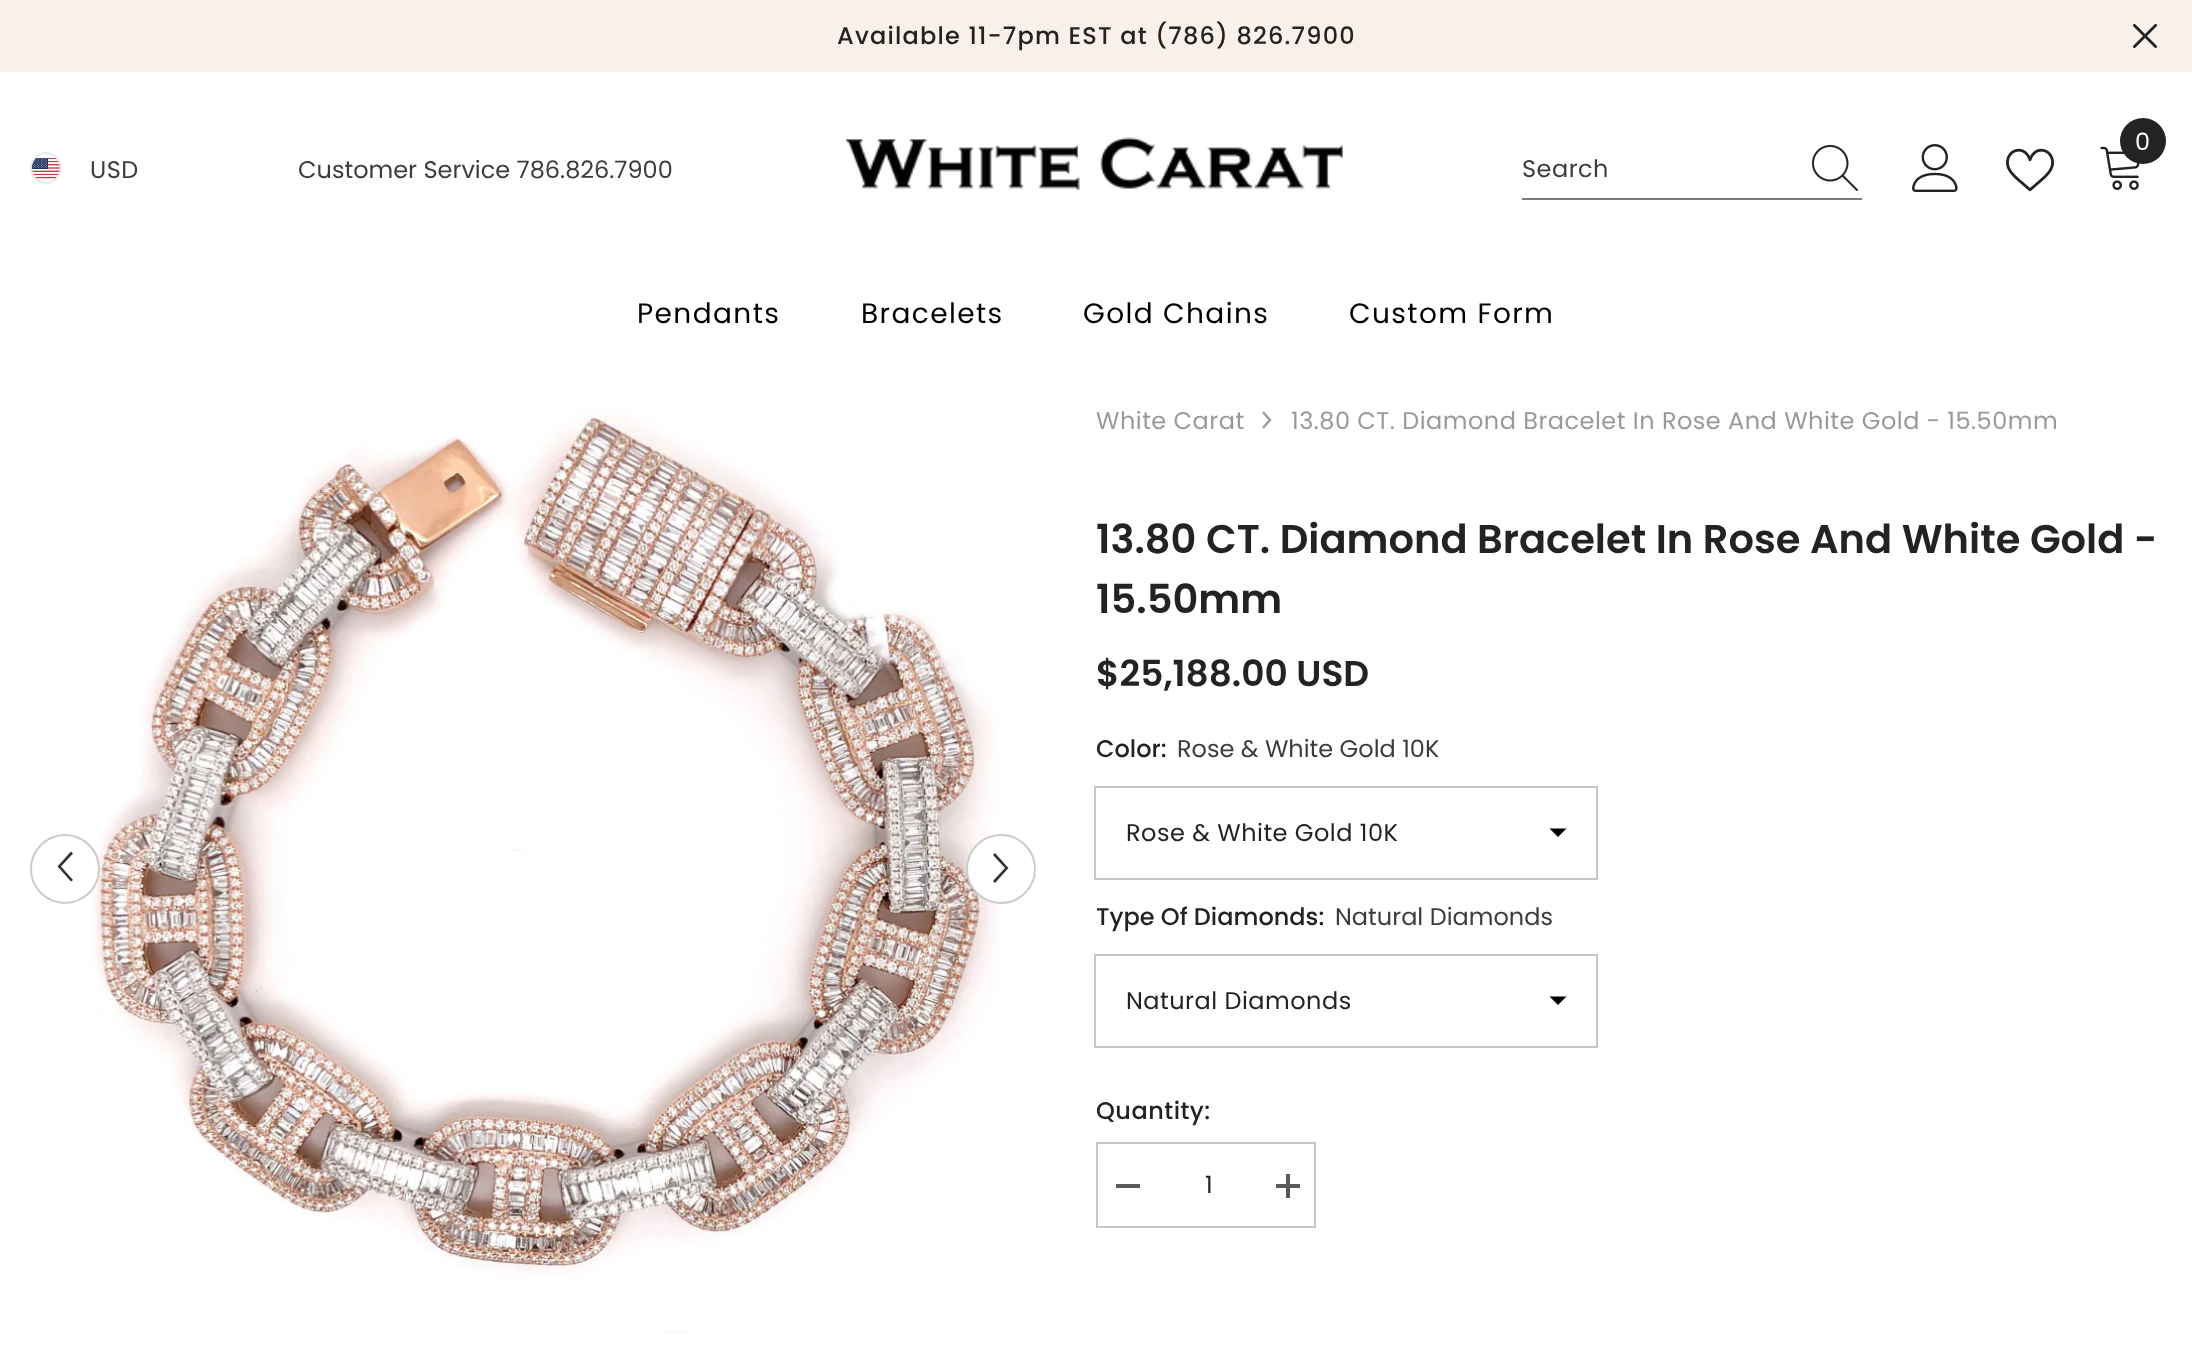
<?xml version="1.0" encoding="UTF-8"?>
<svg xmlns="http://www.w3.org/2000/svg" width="2192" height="1370">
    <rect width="100%" height="100%" fill="#FFFFFF"/>
    <rect x="0" y="0" width="2192" height="72" fill="#F9F1E9"/>
    <text x="837" y="44" font-family="Poppins" font-size="24" font-weight="500" letter-spacing="1.2" fill="#232323">Available 11-7pm EST at (786) 826.7900</text>
    <image x="2133" y="24" width="24" height="24" href="img_01.png"/>
    <circle cx="46" cy="168" r="15" fill="none" stroke="#E9E9E9" stroke-width="2"/>
    <image x="32" y="158" width="28" height="21" href="img_02.png"/>
    <text x="90" y="178" font-family="Poppins" font-size="24" letter-spacing="0.48" fill="#3C3C3C">USD</text>
    <text x="298" y="178" font-family="Poppins" font-size="24" fill="#3C3C3C">Customer Service 786.826.7900</text>
    <image x="846" y="137" width="497" height="53" href="img_03.png"/>
    <image x="2100" y="146" width="40" height="44" href="img_04.png"/>
    <circle cx="2143" cy="141" r="23" fill="#232323"/>
    <text x="2135" y="150" font-family="Poppins" font-size="24" fill="#FFFFFF">0</text>
    <image x="1912" y="144" width="46" height="48" href="img_05.png"/>
    <image x="2006" y="148" width="48" height="44" href="img_06.png"/>
    <rect x="1522" y="198" width="340" height="2" fill="#7B7B7B"/>
    <text x="1522" y="177" font-family="Poppins" font-size="24" letter-spacing="0.48" fill="#3C3C3C">Search</text>
    <image x="1812" y="144" width="46" height="47" href="img_07.png"/>
    <text x="637" y="323" font-family="Poppins" font-size="28" letter-spacing="1.4" fill="#000000">Pendants</text>
    <text x="861" y="323" font-family="Poppins" font-size="28" letter-spacing="1.4" fill="#000000">Bracelets</text>
    <text x="1083" y="323" font-family="Poppins" font-size="28" letter-spacing="1.4" fill="#000000">Gold Chains</text>
    <text x="1349" y="323" font-family="Poppins" font-size="28" letter-spacing="1.4" fill="#000000">Custom Form</text>
    <image x="91" y="408" width="910" height="926" href="img_08.png"/>
    <circle cx="65" cy="869" r="34" fill="#FFFFFF" stroke="#CCCCCC" stroke-width="2"/>
    <path d="M 71 881.5 L 73 880 L 61 866.5 L 73 853.5 L 71 851.5 L 57.5 866.5 L 58.5 867.5 Z" fill="#323232"/>
    <circle cx="1001" cy="869" r="34" fill="#FFFFFF" stroke="#CCCCCC" stroke-width="2"/>
    <path d="M 995 853 L 993 855 L 1005 868 L 993 881 L 995 883 L 1008.5 868 L 1007.5 867 Z" fill="#323232"/>
    <text x="1096" y="429" font-family="Poppins" font-size="24" letter-spacing="0.48" fill="#999999">White Carat</text>
    <image x="1262" y="411" width="10" height="18" href="img_09.png"/>
    <text x="1291" y="429" font-family="Poppins" font-size="24" letter-spacing="0.48" fill="#999999">13.80 CT. Diamond Bracelet In Rose And White Gold - 15.50mm</text>
    <text font-family="Poppins" font-size="40" font-weight="600" fill="#232323">
        <tspan x="1096" y="553">13.80 CT. Diamond Bracelet In Rose And White Gold -</tspan>
        <tspan x="1096" y="613">15.50mm</tspan>
    </text>
    <text x="1096" y="686" font-family="Poppins" font-size="36" font-weight="600" fill="#232323">$25,188.00 USD</text>
    <text x="1096" y="757" font-family="Poppins" font-size="24" font-weight="500" fill="#232323">Color:</text>
    <text x="1177" y="757" font-family="Poppins" font-size="24" fill="#3C3C3C">Rose &amp; White Gold 10K</text>
    <rect x="1095" y="787" width="502" height="92" fill="none" stroke="#C7C7C7" stroke-width="2"/>
    <path d="M 1549.5 828.5 L 1558 837 L 1566.5 828.5 Z" fill="#000000"/>
    <text x="1126" y="841" font-family="Poppins" font-size="24" letter-spacing="0.48" fill="#232323">Rose &amp; White Gold 10K</text>
    <text x="1096" y="925" font-family="Poppins" font-size="24" font-weight="500" fill="#232323">Type Of Diamonds:</text>
    <text x="1335" y="925" font-family="Poppins" font-size="24" fill="#3C3C3C">Natural Diamonds</text>
    <rect x="1095" y="955" width="502" height="92" fill="none" stroke="#C7C7C7" stroke-width="2"/>
    <path d="M 1549.5 996.5 L 1558 1005 L 1566.5 996.5 Z" fill="#000000"/>
    <text x="1126" y="1009" font-family="Poppins" font-size="24" letter-spacing="0.48" fill="#232323">Natural Diamonds</text>
    <text x="1096" y="1119" font-family="Poppins" font-size="24" font-weight="500" letter-spacing="0.48" fill="#232323">Quantity:</text>
    <rect x="1097" y="1143" width="218" height="84" fill="none" stroke="#C7C7C7" stroke-width="2"/>
    <rect x="1116" y="1184" width="24" height="4" fill="#5A5A5A"/>
    <text x="1205" y="1193" font-family="Poppins" font-size="24" letter-spacing="0.48" fill="#232323">1</text>
    <rect x="1276" y="1184" width="24" height="4" fill="#5A5A5A"/>
    <rect x="1286" y="1174" width="4" height="24" fill="#5A5A5A"/>
</svg>
